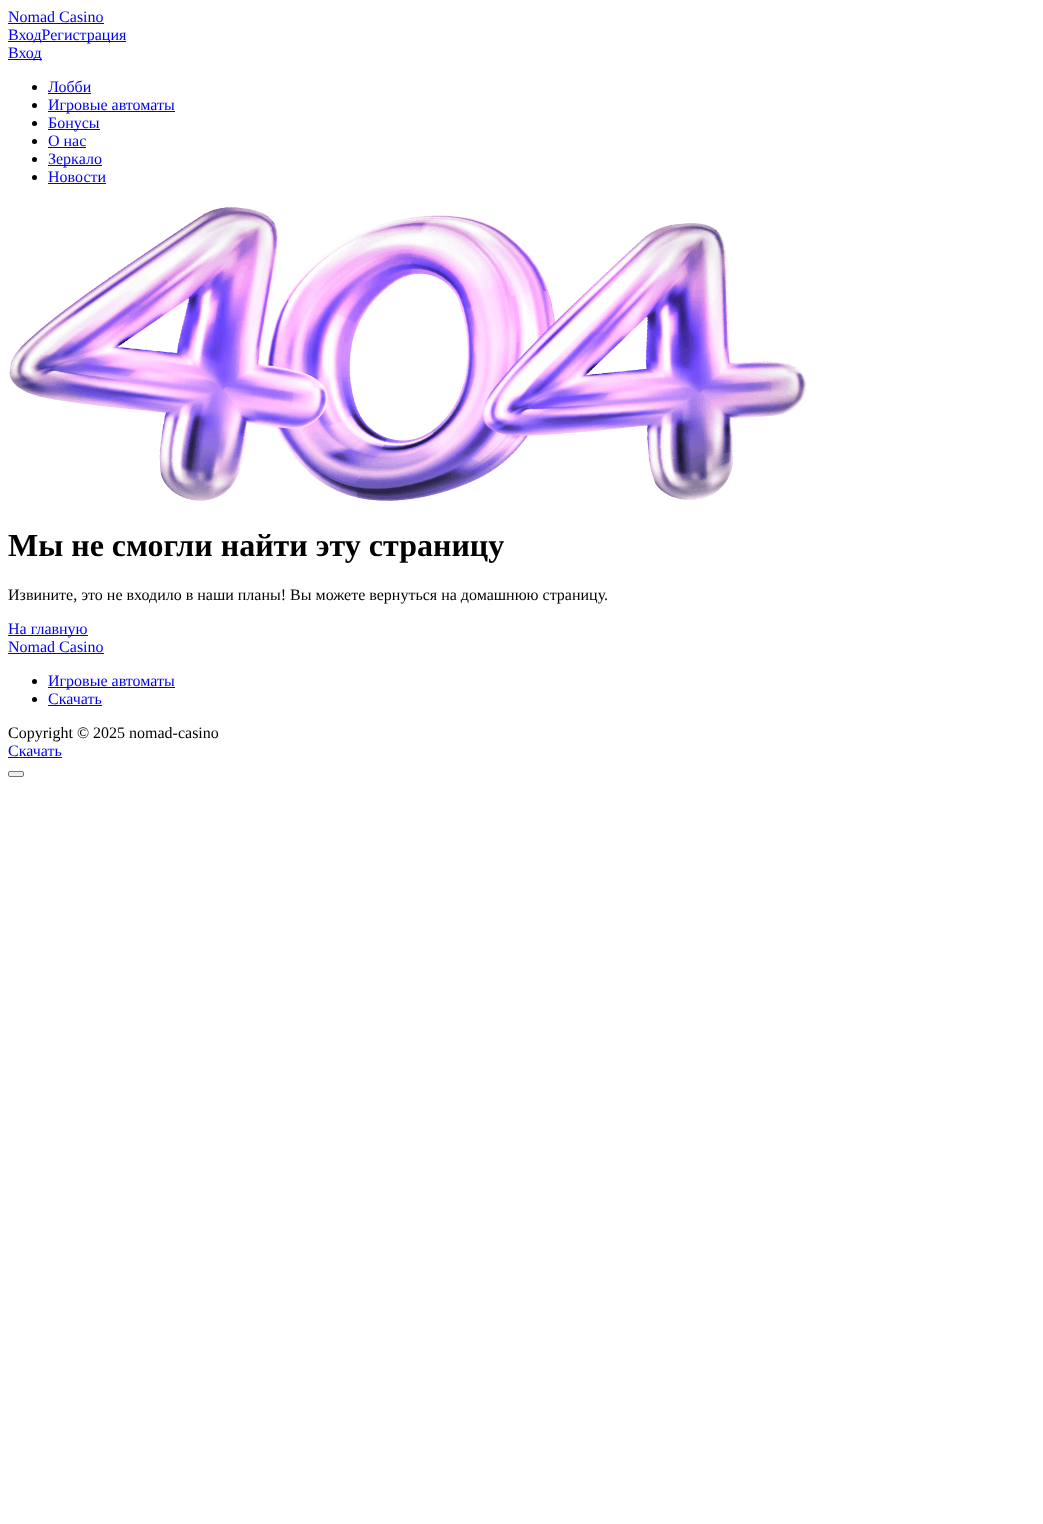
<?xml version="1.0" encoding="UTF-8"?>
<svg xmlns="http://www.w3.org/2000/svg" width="1043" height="1524">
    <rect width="100%" height="100%" fill="#FFFFFF"/>
    <text x="8" y="22" font-family="Liberation Serif" font-size="16" fill="#0000EE">Nomad Casino</text>
    <rect x="8" y="23" width="96" height="1" fill="#0000EE"/>
    <rect x="8" y="41" width="118" height="1" fill="#0000EE"/>
    <text x="8" y="40" font-family="Liberation Serif" font-size="16" fill="#0000EE">ВходРегистрация</text>
    <rect x="8" y="59" width="34" height="1" fill="#0000EE"/>
    <text x="8" y="58" font-family="Liberation Serif" font-size="16" fill="#0000EE">Вход</text>
    <circle cx="34.5" cy="87.5" r="2.5" fill="#000000"/>
    <text x="48" y="92" font-family="Liberation Serif" font-size="16" fill="#0000EE">Лобби</text>
    <rect x="48" y="93" width="43" height="1" fill="#0000EE"/>
    <circle cx="34.5" cy="105.5" r="2.5" fill="#000000"/>
    <rect x="48" y="111" width="127" height="1" fill="#0000EE"/>
    <text x="48" y="110" font-family="Liberation Serif" font-size="16" fill="#0000EE">Игровые автоматы</text>
    <circle cx="34.5" cy="123.5" r="2.5" fill="#000000"/>
    <rect x="48" y="129" width="52" height="1" fill="#0000EE"/>
    <text x="48" y="128" font-family="Liberation Serif" font-size="16" fill="#0000EE">Бонусы</text>
    <circle cx="34.5" cy="141.5" r="2.5" fill="#000000"/>
    <text x="48" y="146" font-family="Liberation Serif" font-size="16" fill="#0000EE">О нас</text>
    <rect x="48" y="147" width="38" height="1" fill="#0000EE"/>
    <circle cx="34.5" cy="159.5" r="2.5" fill="#000000"/>
    <rect x="48" y="165" width="54" height="1" fill="#0000EE"/>
    <text x="48" y="164" font-family="Liberation Serif" font-size="16" fill="#0000EE">Зеркало</text>
    <circle cx="34.5" cy="177.5" r="2.5" fill="#000000"/>
    <text x="48" y="182" font-family="Liberation Serif" font-size="16" fill="#0000EE">Новости</text>
    <rect x="48" y="183" width="58" height="1" fill="#0000EE"/>
    <image x="9" y="207" width="798" height="294" href="img_01.png"/>
    <text x="8" y="556" font-family="Liberation Serif" font-size="32" font-weight="700" fill="#000000">Мы не смогли найти эту страницу</text>
    <text x="8" y="600" font-family="Liberation Serif" font-size="16" fill="#000000">Извините, это не входило в наши планы! Вы можете вернуться на домашнюю страницу.</text>
    <rect x="8" y="635" width="80" height="1" fill="#0000EE"/>
    <text font-family="Liberation Serif" font-size="16" fill="#0000EE">
        <tspan x="8" y="634">На главную</tspan>
        <tspan x="8" y="652">Nomad Casino</tspan>
    </text>
    <rect x="8" y="653" width="96" height="1" fill="#0000EE"/>
    <circle cx="34.5" cy="681.5" r="2.5" fill="#000000"/>
    <rect x="48" y="687" width="127" height="1" fill="#0000EE"/>
    <text x="48" y="686" font-family="Liberation Serif" font-size="16" fill="#0000EE">Игровые автоматы</text>
    <circle cx="34.5" cy="699.5" r="2.5" fill="#000000"/>
    <text x="48" y="704" font-family="Liberation Serif" font-size="16" fill="#0000EE">Скачать</text>
    <rect x="48" y="705" width="54" height="1" fill="#0000EE"/>
    <text x="8" y="738" font-family="Liberation Serif" font-size="16" fill="#000000">Copyright © 2025 nomad-casino</text>
    <text x="8" y="756" font-family="Liberation Serif" font-size="16" fill="#0000EE">Скачать</text>
    <rect x="8" y="757" width="54" height="1" fill="#0000EE"/>
    <rect x="8.5" y="771.5" width="15" height="5" rx="1.5" fill="#EFEFEF" stroke="#767676"/>
</svg>
